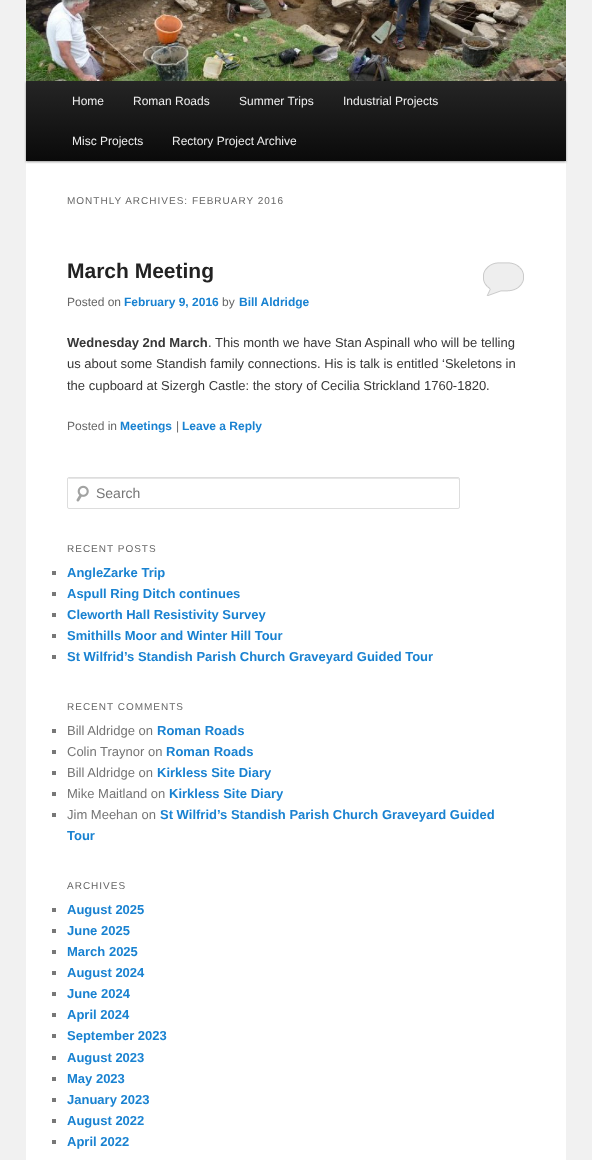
<?xml version="1.0" encoding="UTF-8"?>
<svg xmlns="http://www.w3.org/2000/svg" width="592" height="1160">
    <defs>
        <filter id="blur1" x="-50%" y="-200%" width="200%" height="500%"><feGaussianBlur stdDeviation="1"/></filter>
        <linearGradient id="g1" gradientUnits="userSpaceOnUse" x1="296" y1="81" x2="296" y2="161"><stop offset="0" stop-color="#252525"/><stop offset="1" stop-color="#0A0A0A"/></linearGradient>
    </defs>
    <rect width="100%" height="100%" fill="#F1F1F1"/>
    <rect x="26" y="161" width="540" height="999" fill="#FFFFFF"/>
    <rect x="26" y="82" width="540" height="80" fill="#000000" fill-opacity="0.4" filter="url(#blur1)"/>
    <image x="26" y="0" width="540" height="81" href="img_01.png"/>
    <rect x="26" y="81" width="540" height="80" fill="url(#g1)"/>
    <text x="72" y="105" font-family="Liberation Sans" font-size="12" fill="#EEEEEE">Home</text>
    <text x="133" y="105" font-family="Liberation Sans" font-size="12" fill="#EEEEEE">Roman Roads</text>
    <text x="239" y="105" font-family="Liberation Sans" font-size="12" fill="#EEEEEE">Summer Trips</text>
    <text x="343" y="105" font-family="Liberation Sans" font-size="12" fill="#EEEEEE">Industrial Projects</text>
    <text x="72" y="145" font-family="Liberation Sans" font-size="12" fill="#EEEEEE">Misc Projects</text>
    <text x="172" y="145" font-family="Liberation Sans" font-size="12" fill="#EEEEEE">Rectory Project Archive</text>
    <text x="67" y="204" font-family="Liberation Sans" font-size="10" letter-spacing="1" fill="#666666">MONTHLY ARCHIVES: FEBRUARY 2016</text>
    <text x="67" y="278" font-family="Liberation Sans" font-size="21" font-weight="700" fill="#222222">March Meeting</text>
    <rect x="483" y="262" width="41" height="34" fill="#EEEEEE"/>
    <image x="482" y="260" width="43" height="36" href="img_02.png"/>
    <text x="67" y="306" font-family="Liberation Sans" font-size="12" fill="#666666">Posted on</text>
    <text x="124" y="306" font-family="Liberation Sans" font-size="12" font-weight="700" fill="#1982D1">February 9, 2016</text>
    <text x="222" y="306" font-family="Liberation Sans" font-size="12" fill="#666666">by</text>
    <text x="239" y="306" font-family="Liberation Sans" font-size="12" font-weight="700" fill="#1982D1">Bill Aldridge</text>
    <text x="67" y="347" font-family="Liberation Sans" font-size="13" font-weight="700" fill="#373737">Wednesday 2nd March</text>
    <text x="208" y="347" font-family="Liberation Sans" font-size="13" fill="#373737">. This month we have Stan Aspinall who will be telling</text>
    <text font-family="Liberation Sans" font-size="13" fill="#373737">
        <tspan x="67" y="368">us about some Standish family connections. His is talk is entitled ‘Skeletons in</tspan>
        <tspan x="67" y="390">the cupboard at Sizergh Castle: the story of Cecilia Strickland 1760-1820.</tspan>
    </text>
    <text x="67" y="430" font-family="Liberation Sans" font-size="12" fill="#666666">Posted in</text>
    <text x="120" y="430" font-family="Liberation Sans" font-size="12" font-weight="700" fill="#1982D1">Meetings</text>
    <text x="176" y="430" font-family="Liberation Sans" font-size="12" fill="#666666">|</text>
    <text x="182" y="430" font-family="Liberation Sans" font-size="12" font-weight="700" fill="#1982D1">Leave a Reply</text>
    <image x="76" y="485" width="13" height="17" href="img_03.png"/>
    <path d="M 69 478 L 68 479 H 458 L 459 480 C 459 479 459 478 458 478 Z" fill="#E6E6E6"/>
    <rect x="67.5" y="477.5" width="392" height="31" rx="1.5" fill="none" stroke="#DDDDDD"/>
    <text x="96" y="498" font-family="Liberation Sans" font-size="14" fill="#757575">Search</text>
    <text x="67" y="552" font-family="Liberation Sans" font-size="10" letter-spacing="1" fill="#666666">RECENT POSTS</text>
    <rect x="52" y="571" width="4" height="4" fill="#777777"/>
    <text x="67" y="577" font-family="Liberation Sans" font-size="13" font-weight="700" fill="#1982D1">AngleZarke Trip</text>
    <rect x="52" y="592" width="4" height="4" fill="#777777"/>
    <text x="67" y="598" font-family="Liberation Sans" font-size="13" font-weight="700" fill="#1982D1">Aspull Ring Ditch continues</text>
    <rect x="52" y="613" width="4" height="4" fill="#777777"/>
    <text x="67" y="619" font-family="Liberation Sans" font-size="13" font-weight="700" fill="#1982D1">Cleworth Hall Resistivity Survey</text>
    <rect x="52" y="634" width="4" height="4" fill="#777777"/>
    <text x="67" y="640" font-family="Liberation Sans" font-size="13" font-weight="700" fill="#1982D1">Smithills Moor and Winter Hill Tour</text>
    <rect x="52" y="655" width="4" height="4" fill="#777777"/>
    <text x="67" y="661" font-family="Liberation Sans" font-size="13" font-weight="700" fill="#1982D1">St Wilfrid’s Standish Parish Church Graveyard Guided Tour</text>
    <text x="67" y="710" font-family="Liberation Sans" font-size="10" letter-spacing="1" fill="#666666">RECENT COMMENTS</text>
    <rect x="52" y="729" width="4" height="4" fill="#777777"/>
    <text x="67" y="735" font-family="Liberation Sans" font-size="13" fill="#757575">Bill Aldridge on</text>
    <text x="157" y="735" font-family="Liberation Sans" font-size="13" font-weight="700" fill="#1982D1">Roman Roads</text>
    <rect x="52" y="750" width="4" height="4" fill="#777777"/>
    <text x="67" y="756" font-family="Liberation Sans" font-size="13" fill="#757575">Colin Traynor on</text>
    <text x="166" y="756" font-family="Liberation Sans" font-size="13" font-weight="700" fill="#1982D1">Roman Roads</text>
    <rect x="52" y="771" width="4" height="4" fill="#777777"/>
    <text x="67" y="777" font-family="Liberation Sans" font-size="13" fill="#757575">Bill Aldridge on</text>
    <text x="157" y="777" font-family="Liberation Sans" font-size="13" font-weight="700" fill="#1982D1">Kirkless Site Diary</text>
    <rect x="52" y="792" width="4" height="4" fill="#777777"/>
    <text x="67" y="798" font-family="Liberation Sans" font-size="13" fill="#757575">Mike Maitland on</text>
    <text x="169" y="798" font-family="Liberation Sans" font-size="13" font-weight="700" fill="#1982D1">Kirkless Site Diary</text>
    <rect x="52" y="813" width="4" height="4" fill="#777777"/>
    <text x="67" y="819" font-family="Liberation Sans" font-size="13" fill="#757575">Jim Meehan on</text>
    <text x="160" y="819" font-family="Liberation Sans" font-size="13" font-weight="700" fill="#1982D1">St Wilfrid’s Standish Parish Church Graveyard Guided</text>
    <text x="67" y="840" font-family="Liberation Sans" font-size="13" font-weight="700" fill="#1982D1">Tour</text>
    <text x="67" y="889" font-family="Liberation Sans" font-size="10" letter-spacing="1" fill="#666666">ARCHIVES</text>
    <rect x="52" y="908" width="4" height="4" fill="#777777"/>
    <text x="67" y="914" font-family="Liberation Sans" font-size="13" font-weight="700" fill="#1982D1">August 2025</text>
    <rect x="52" y="929" width="4" height="4" fill="#777777"/>
    <text x="67" y="935" font-family="Liberation Sans" font-size="13" font-weight="700" fill="#1982D1">June 2025</text>
    <rect x="52" y="950" width="4" height="4" fill="#777777"/>
    <text x="67" y="956" font-family="Liberation Sans" font-size="13" font-weight="700" fill="#1982D1">March 2025</text>
    <rect x="52" y="971" width="4" height="4" fill="#777777"/>
    <text x="67" y="977" font-family="Liberation Sans" font-size="13" font-weight="700" fill="#1982D1">August 2024</text>
    <rect x="52" y="992" width="4" height="4" fill="#777777"/>
    <text x="67" y="998" font-family="Liberation Sans" font-size="13" font-weight="700" fill="#1982D1">June 2024</text>
    <rect x="52" y="1013" width="4" height="4" fill="#777777"/>
    <text x="67" y="1019" font-family="Liberation Sans" font-size="13" font-weight="700" fill="#1982D1">April 2024</text>
    <rect x="52" y="1034" width="4" height="4" fill="#777777"/>
    <text x="67" y="1040" font-family="Liberation Sans" font-size="13" font-weight="700" fill="#1982D1">September 2023</text>
    <rect x="52" y="1056" width="4" height="4" fill="#777777"/>
    <text x="67" y="1062" font-family="Liberation Sans" font-size="13" font-weight="700" fill="#1982D1">August 2023</text>
    <rect x="52" y="1077" width="4" height="4" fill="#777777"/>
    <text x="67" y="1083" font-family="Liberation Sans" font-size="13" font-weight="700" fill="#1982D1">May 2023</text>
    <rect x="52" y="1098" width="4" height="4" fill="#777777"/>
    <text x="67" y="1104" font-family="Liberation Sans" font-size="13" font-weight="700" fill="#1982D1">January 2023</text>
    <rect x="52" y="1119" width="4" height="4" fill="#777777"/>
    <text x="67" y="1125" font-family="Liberation Sans" font-size="13" font-weight="700" fill="#1982D1">August 2022</text>
    <rect x="52" y="1140" width="4" height="4" fill="#777777"/>
    <text x="67" y="1146" font-family="Liberation Sans" font-size="13" font-weight="700" fill="#1982D1">April 2022</text>
</svg>
